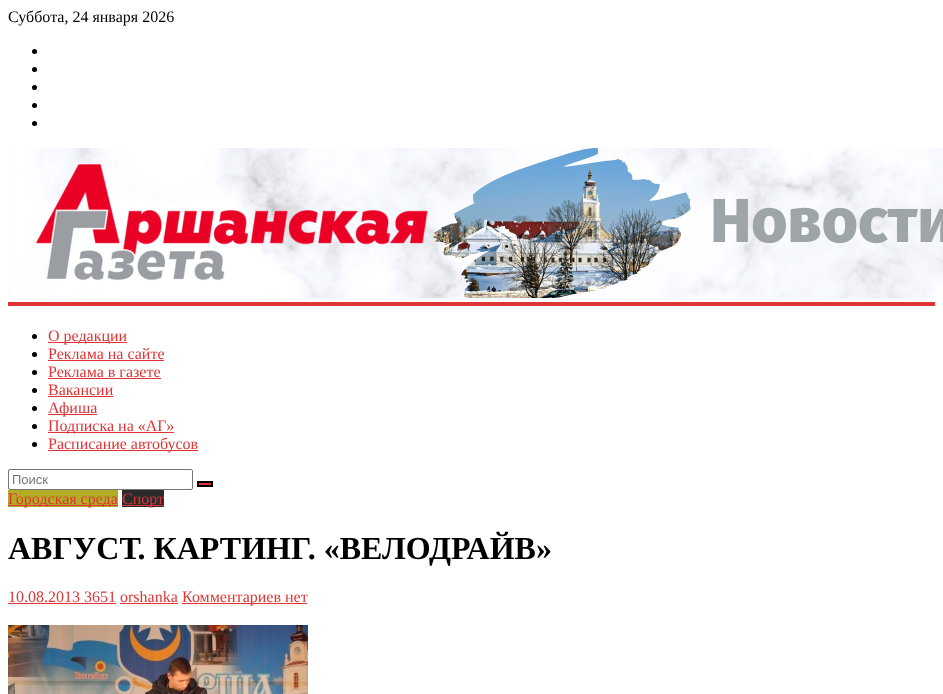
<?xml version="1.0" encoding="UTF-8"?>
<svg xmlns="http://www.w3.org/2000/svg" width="943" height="694">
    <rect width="100%" height="100%" fill="#FFFFFF"/>
    <text x="8" y="22" font-family="Liberation Serif" font-size="16" fill="#000000">Суббота, 24 января 2026</text>
    <circle cx="34.5" cy="51.5" r="2.5" fill="#000000"/>
    <circle cx="34.5" cy="69.5" r="2.5" fill="#000000"/>
    <circle cx="34.5" cy="87.5" r="2.5" fill="#000000"/>
    <circle cx="34.5" cy="105.5" r="2.5" fill="#000000"/>
    <circle cx="34.5" cy="123.5" r="2.5" fill="#000000"/>
    <image x="8" y="148" width="935" height="150" href="img_01.png"/>
    <rect x="8" y="302" width="927" height="4" fill="#DD3535"/>
    <circle cx="34.5" cy="336.5" r="2.5" fill="#000000"/>
    <rect x="48" y="342" width="79" height="1" fill="#DD3535"/>
    <text x="48" y="341" font-family="Liberation Serif" font-size="16" fill="#DD3535">О редакции</text>
    <circle cx="34.5" cy="354.5" r="2.5" fill="#000000"/>
    <text x="48" y="359" font-family="Liberation Serif" font-size="16" fill="#DD3535">Реклама на сайте</text>
    <rect x="48" y="360" width="116" height="1" fill="#DD3535"/>
    <circle cx="34.5" cy="372.5" r="2.5" fill="#000000"/>
    <text x="48" y="377" font-family="Liberation Serif" font-size="16" fill="#DD3535">Реклама в газете</text>
    <rect x="48" y="378" width="113" height="1" fill="#DD3535"/>
    <circle cx="34.5" cy="390.5" r="2.5" fill="#000000"/>
    <text x="48" y="395" font-family="Liberation Serif" font-size="16" fill="#DD3535">Вакансии</text>
    <rect x="48" y="396" width="65" height="1" fill="#DD3535"/>
    <circle cx="34.5" cy="408.5" r="2.5" fill="#000000"/>
    <rect x="48" y="414" width="49" height="1" fill="#DD3535"/>
    <text x="48" y="413" font-family="Liberation Serif" font-size="16" fill="#DD3535">Афиша</text>
    <circle cx="34.5" cy="426.5" r="2.5" fill="#000000"/>
    <rect x="48" y="432" width="126" height="1" fill="#DD3535"/>
    <text x="48" y="431" font-family="Liberation Serif" font-size="16" fill="#DD3535">Подписка на «АГ»</text>
    <circle cx="34.5" cy="444.5" r="2.5" fill="#000000"/>
    <rect x="48" y="450" width="150" height="1" fill="#DD3535"/>
    <text x="48" y="449" font-family="Liberation Serif" font-size="16" fill="#DD3535">Расписание автобусов</text>
    <rect x="8.5" y="469.5" width="184" height="20" rx="1.5" fill="none" stroke="#767676"/>
    <text x="12" y="484" font-family="Liberation Sans" font-size="13" fill="#757575">Поиск</text>
    <rect x="198" y="482" width="14" height="4" fill="#DD3535" stroke="#000000" stroke-width="2"/>
    <rect x="8" y="490" width="110" height="17" fill="#B2AD25"/>
    <rect x="8" y="505" width="110" height="1" fill="#DD3535"/>
    <text x="8" y="504" font-family="Liberation Serif" font-size="16" fill="#DD3535">Городская среда</text>
    <rect x="122" y="490" width="42" height="17" fill="#2B2B2B"/>
    <rect x="122" y="505" width="42" height="1" fill="#DD3535"/>
    <text x="122" y="504" font-family="Liberation Serif" font-size="16" fill="#DD3535">Спорт</text>
    <text x="8" y="559" font-family="Liberation Serif" font-size="32" font-weight="700" fill="#000000">АВГУСТ. КАРТИНГ. «ВЕЛОДРАЙВ»</text>
    <text x="8" y="602" font-family="Liberation Serif" font-size="16" fill="#DD3535">10.08.2013 3651 orshanka</text>
    <rect x="8" y="603" width="108" height="1" fill="#DD3535"/>
    <rect x="182" y="603" width="125" height="1" fill="#DD3535"/>
    <text x="182" y="602" font-family="Liberation Serif" font-size="16" fill="#DD3535">Комментариев нет</text>
    <rect x="120" y="603" width="58" height="1" fill="#DD3535"/>
    <image x="8" y="625" width="300" height="69" href="img_02.png"/>
</svg>
